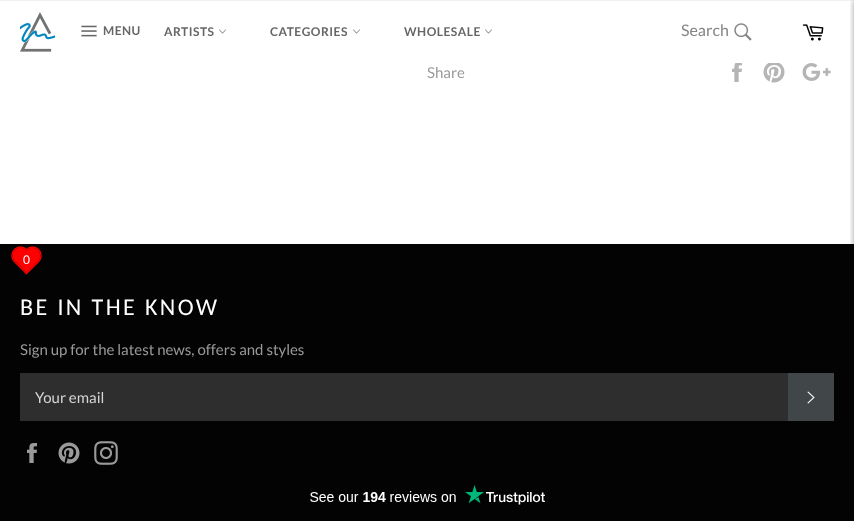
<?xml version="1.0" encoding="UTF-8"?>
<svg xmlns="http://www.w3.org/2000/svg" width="854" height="521">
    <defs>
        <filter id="blur1" x="-50%" y="-200%" width="200%" height="500%"><feGaussianBlur stdDeviation="3.5"/></filter>
    </defs>
    <rect width="100%" height="100%" fill="#030303"/>
    <rect x="0" y="1" width="854" height="243" fill="#FFFFFF"/>
    <rect x="0" y="0" width="854" height="1" fill="#F2F2F2"/>
    <image x="20" y="12" width="35" height="40" href="img_01.png"/>
    <image x="81" y="25" width="16" height="12" href="img_02.png"/>
    <text x="103" y="35" font-family="Lato" font-size="12" font-weight="700" letter-spacing="0.5" fill="#666666">MENU</text>
    <text x="164" y="36" font-family="Lato" font-size="12" font-weight="700" letter-spacing="0.5" fill="#666666">ARTISTS</text>
    <image x="219" y="29" width="7" height="5" href="img_03.png"/>
    <text x="270" y="36" font-family="Lato" font-size="12" font-weight="700" letter-spacing="0.5" fill="#666666">CATEGORIES</text>
    <image x="353" y="29" width="7" height="5" href="img_03.png"/>
    <text x="404" y="36" font-family="Lato" font-size="12" font-weight="700" letter-spacing="0.5" fill="#666666">WHOLESALE</text>
    <image x="485" y="29" width="7" height="5" href="img_03.png"/>
    <text x="681" y="36" font-family="Lato" font-size="16" fill="#868484">Search</text>
    <image x="734" y="23" width="18" height="18" href="img_04.png"/>
    <image x="802" y="24" width="22" height="17" href="img_05.png"/>
    <text x="427" y="78" font-family="Lato" font-size="15" fill="#9A9A9A">Share</text>
    <image x="732" y="63" width="10" height="19" href="img_06.png"/>
    <image x="763" y="63" width="22" height="20" href="img_07.png"/>
    <image x="802" y="63" width="29" height="18" href="img_08.png"/>
    <image x="11" y="246" width="31" height="29" href="img_09.png"/>
    <text x="23" y="264" font-family="Lato" font-size="12" fill="#FFFFFF">0</text>
    <rect x="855" y="0" width="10" height="521" fill="#000000" fill-opacity="0.5" filter="url(#blur1)"/>
    <text x="20" y="315" font-family="Carlito" font-size="24" letter-spacing="2.4" fill="#FFFFFF">BE IN THE KNOW</text>
    <text x="20" y="355" font-family="Lato" font-size="15" fill="#9A9A9A">Sign up for the latest news, offers and styles</text>
    <rect x="20" y="373" width="768" height="48" fill="#2E2E2E"/>
    <text x="35" y="403" font-family="Lato" font-size="15" fill="#D5D5D5">Your email</text>
    <rect x="788" y="373" width="46" height="48" fill="#414749"/>
    <image x="807" y="391" width="8" height="13" href="img_10.png"/>
    <image x="27" y="443" width="10" height="20" href="img_11.png"/>
    <image x="58" y="442" width="22" height="22" href="img_12.png"/>
    <image x="94" y="441" width="24" height="24" href="img_13.png"/>
    <image x="310" y="485" width="235" height="20" href="img_14.png"/>
</svg>
